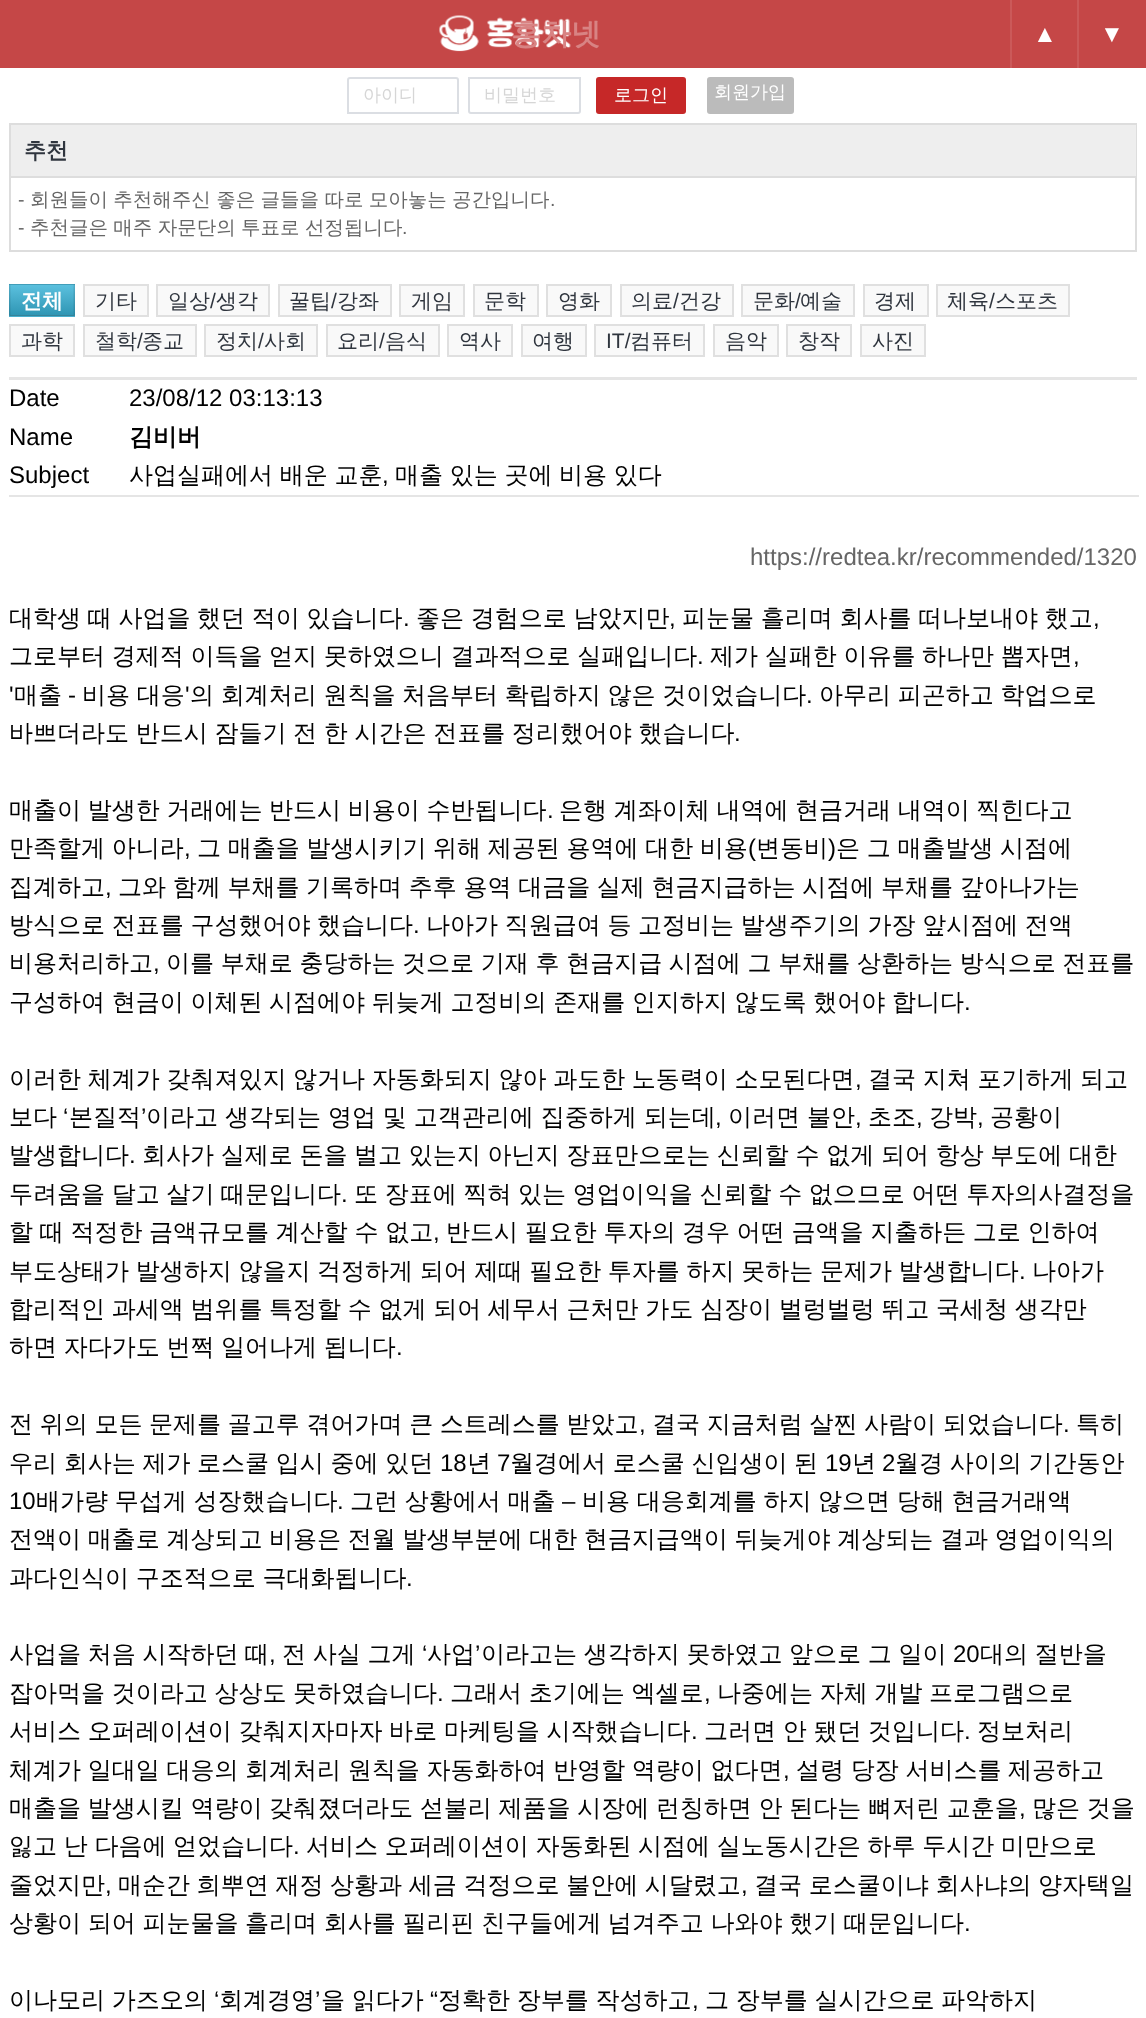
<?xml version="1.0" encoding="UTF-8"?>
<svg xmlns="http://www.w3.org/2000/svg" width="1146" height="2018">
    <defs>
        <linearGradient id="g1" gradientUnits="userSpaceOnUse" x1="42" y1="285" x2="42" y2="315"><stop offset="0" stop-color="#5BC0DE"/><stop offset="1" stop-color="#2F96B4"/></linearGradient>
    </defs>
    <rect width="100%" height="100%" fill="#FFFFFF"/>
    <rect x="0" y="0" width="1146" height="68" fill="#C54747"/>
    <image x="439" y="15" width="132" height="37" href="img_01.png"/>
    <text x="511" y="44" font-family="WenQuanYi Zen Hei" font-size="30" font-weight="700" fill="#D88383">홍차넷</text>
    <rect x="1010" y="0" width="2" height="68" fill="#CB5959"/>
    <text x="1033" y="42" font-family="Liberation Sans" font-size="24" fill="#FFFFFF">▲</text>
    <rect x="1077" y="0" width="2" height="68" fill="#CB5959"/>
    <text x="1100" y="42" font-family="Liberation Sans" font-size="24" fill="#FFFFFF">▼</text>
    <path d="M 350 78 H 456 C 457 78 458 79 458 80 V 113 H 348 V 80 C 348 79 349 78 350 78 Z" fill="none" stroke="#DBDEE3" stroke-width="2"/>
    <text x="363" y="101" font-family="WenQuanYi Zen Hei" font-size="18" font-weight="500" fill="#D6D6D6">아이디</text>
    <path d="M 469 78 H 580 V 111 C 580 112 579 113 578 113 H 471 C 470 113 469 112 469 111 Z" fill="none" stroke="#DBDEE3" stroke-width="2"/>
    <text x="484" y="101" font-family="WenQuanYi Zen Hei" font-size="18" font-weight="500" fill="#D6D6D6">비밀번호</text>
    <rect x="596" y="77" width="90" height="37" rx="3" fill="#C62828"/>
    <text x="614" y="101" font-family="WenQuanYi Zen Hei" font-size="18" font-weight="500" fill="#FFFFFF">로그인</text>
    <rect x="707" y="77" width="87" height="37" rx="3" fill="#BBBBBB"/>
    <text x="714" y="98" font-family="WenQuanYi Zen Hei" font-size="18" font-weight="500" fill="#FFFFFF">회원가입</text>
    <rect x="10" y="124" width="1126" height="127" fill="none" stroke="#DDDDDD" stroke-width="2"/>
    <rect x="11" y="125" width="1125" height="51" fill="#EEEEEE"/>
    <rect x="11" y="176" width="1125" height="2" fill="#DDDDDD"/>
    <text x="24" y="158" font-family="WenQuanYi Zen Hei" font-size="22" font-weight="700" fill="#2F353E">추천</text>
    <text x="18" y="206" font-family="Liberation Sans" font-size="19.5" fill="#666666">-</text>
    <text x="30" y="206" word-spacing="-0.5" font-family="WenQuanYi Zen Hei" font-size="19.5" font-weight="500" fill="#666666">회원들이 추천해주신 좋은 글들을 따로 모아놓는 공간입니다</text>
    <text x="550" y="206" font-family="Liberation Sans" font-size="19.5" fill="#666666">.</text>
    <text x="18" y="234" font-family="Liberation Sans" font-size="19.5" fill="#666666">-</text>
    <text x="30" y="234" word-spacing="-0.5" font-family="WenQuanYi Zen Hei" font-size="19.5" font-weight="500" fill="#666666">추천글은 매주 자문단의 투표로 선정됩니다</text>
    <text x="402" y="234" font-family="Liberation Sans" font-size="19.5" fill="#666666">.</text>
    <rect x="9" y="284" width="66" height="33" fill="#49AFCD"/>
    <rect x="9" y="285" width="66" height="30" fill="url(#g1)"/>
    <path d="M 9 284 H 75 L 74 285 H 10 Z" fill="#429EB9"/>
    <path d="M 75 283.5 V 316.5 L 73.5 315 V 285 Z" fill="#000000" fill-opacity="0.1"/>
    <path d="M 75 316 H 9 L 10 315 H 74 Z" fill="#000000" fill-opacity="0.25"/>
    <path d="M 9 316.5 V 283.5 L 10.5 285 V 315 Z" fill="#000000" fill-opacity="0.1"/>
    <text x="21" y="308" font-family="WenQuanYi Zen Hei" font-size="21" font-weight="700" fill="#FFFFFF">전체</text>
    <rect x="84" y="285" width="64" height="31" fill="#F9F9F9" stroke="#E0E0E0" stroke-width="2"/>
    <text x="95" y="308" font-family="WenQuanYi Zen Hei" font-size="21" font-weight="500" fill="#2F353E">기타</text>
    <rect x="157" y="285" width="112" height="31" fill="#F9F9F9" stroke="#E0E0E0" stroke-width="2"/>
    <text x="168" y="308" font-family="WenQuanYi Zen Hei" font-size="21" font-weight="500" fill="#2F353E">일상</text>
    <text x="210" y="308" font-family="Liberation Sans" font-size="21" fill="#2F353E">/</text>
    <text x="216" y="308" font-family="WenQuanYi Zen Hei" font-size="21" font-weight="500" fill="#2F353E">생각</text>
    <rect x="279" y="285" width="112" height="31" fill="#F9F9F9" stroke="#E0E0E0" stroke-width="2"/>
    <text x="289" y="308" font-family="WenQuanYi Zen Hei" font-size="21" font-weight="500" fill="#2F353E">꿀팁</text>
    <text x="331" y="308" font-family="Liberation Sans" font-size="21" fill="#2F353E">/</text>
    <text x="337" y="308" font-family="WenQuanYi Zen Hei" font-size="21" font-weight="500" fill="#2F353E">강좌</text>
    <rect x="400" y="285" width="64" height="31" fill="#F9F9F9" stroke="#E0E0E0" stroke-width="2"/>
    <text x="411" y="308" font-family="WenQuanYi Zen Hei" font-size="21" font-weight="500" fill="#2F353E">게임</text>
    <rect x="474" y="285" width="64" height="31" fill="#F9F9F9" stroke="#E0E0E0" stroke-width="2"/>
    <text x="484" y="308" font-family="WenQuanYi Zen Hei" font-size="21" font-weight="500" fill="#2F353E">문학</text>
    <rect x="547" y="285" width="64" height="31" fill="#F9F9F9" stroke="#E0E0E0" stroke-width="2"/>
    <text x="558" y="308" font-family="WenQuanYi Zen Hei" font-size="21" font-weight="500" fill="#2F353E">영화</text>
    <rect x="621" y="285" width="112" height="31" fill="#F9F9F9" stroke="#E0E0E0" stroke-width="2"/>
    <text x="631" y="308" font-family="WenQuanYi Zen Hei" font-size="21" font-weight="500" fill="#2F353E">의료</text>
    <text x="673" y="308" font-family="Liberation Sans" font-size="21" fill="#2F353E">/</text>
    <text x="679" y="308" font-family="WenQuanYi Zen Hei" font-size="21" font-weight="500" fill="#2F353E">건강</text>
    <rect x="742" y="285" width="112" height="31" fill="#F9F9F9" stroke="#E0E0E0" stroke-width="2"/>
    <text x="753" y="308" font-family="WenQuanYi Zen Hei" font-size="21" font-weight="500" fill="#2F353E">문화</text>
    <text x="795" y="308" font-family="Liberation Sans" font-size="21" fill="#2F353E">/</text>
    <text x="800" y="308" font-family="WenQuanYi Zen Hei" font-size="21" font-weight="500" fill="#2F353E">예술</text>
    <rect x="864" y="285" width="64" height="31" fill="#F9F9F9" stroke="#E0E0E0" stroke-width="2"/>
    <text x="874" y="308" font-family="WenQuanYi Zen Hei" font-size="21" font-weight="500" fill="#2F353E">경제</text>
    <rect x="937" y="285" width="132" height="31" fill="#F9F9F9" stroke="#E0E0E0" stroke-width="2"/>
    <text x="947" y="308" font-family="WenQuanYi Zen Hei" font-size="21" font-weight="500" fill="#2F353E">체육</text>
    <text x="989" y="308" font-family="Liberation Sans" font-size="21" fill="#2F353E">/</text>
    <text x="995" y="308" font-family="WenQuanYi Zen Hei" font-size="21" font-weight="500" fill="#2F353E">스포츠</text>
    <rect x="10" y="325" width="64" height="31" fill="#F9F9F9" stroke="#E0E0E0" stroke-width="2"/>
    <text x="21" y="348" font-family="WenQuanYi Zen Hei" font-size="21" font-weight="500" fill="#2F353E">과학</text>
    <rect x="84" y="325" width="112" height="31" fill="#F9F9F9" stroke="#E0E0E0" stroke-width="2"/>
    <text x="95" y="348" font-family="WenQuanYi Zen Hei" font-size="21" font-weight="500" fill="#2F353E">철학</text>
    <text x="137" y="348" font-family="Liberation Sans" font-size="21" fill="#2F353E">/</text>
    <text x="142" y="348" font-family="WenQuanYi Zen Hei" font-size="21" font-weight="500" fill="#2F353E">종교</text>
    <rect x="205" y="325" width="112" height="31" fill="#F9F9F9" stroke="#E0E0E0" stroke-width="2"/>
    <text x="216" y="348" font-family="WenQuanYi Zen Hei" font-size="21" font-weight="500" fill="#2F353E">정치</text>
    <text x="258" y="348" font-family="Liberation Sans" font-size="21" fill="#2F353E">/</text>
    <text x="264" y="348" font-family="WenQuanYi Zen Hei" font-size="21" font-weight="500" fill="#2F353E">사회</text>
    <rect x="327" y="325" width="112" height="31" fill="#F9F9F9" stroke="#E0E0E0" stroke-width="2"/>
    <text x="337" y="348" font-family="WenQuanYi Zen Hei" font-size="21" font-weight="500" fill="#2F353E">요리</text>
    <text x="379" y="348" font-family="Liberation Sans" font-size="21" fill="#2F353E">/</text>
    <text x="385" y="348" font-family="WenQuanYi Zen Hei" font-size="21" font-weight="500" fill="#2F353E">음식</text>
    <rect x="448" y="325" width="64" height="31" fill="#F9F9F9" stroke="#E0E0E0" stroke-width="2"/>
    <text x="459" y="348" font-family="WenQuanYi Zen Hei" font-size="21" font-weight="500" fill="#2F353E">역사</text>
    <rect x="522" y="325" width="64" height="31" fill="#F9F9F9" stroke="#E0E0E0" stroke-width="2"/>
    <text x="532" y="348" font-family="WenQuanYi Zen Hei" font-size="21" font-weight="500" fill="#2F353E">여행</text>
    <rect x="595" y="325" width="109" height="31" fill="#F9F9F9" stroke="#E0E0E0" stroke-width="2"/>
    <text x="606" y="348" font-family="Liberation Sans" font-size="21" fill="#2F353E">IT/</text>
    <text x="630" y="348" font-family="WenQuanYi Zen Hei" font-size="21" font-weight="500" fill="#2F353E">컴퓨터</text>
    <rect x="714" y="325" width="64" height="31" fill="#F9F9F9" stroke="#E0E0E0" stroke-width="2"/>
    <text x="725" y="348" font-family="WenQuanYi Zen Hei" font-size="21" font-weight="500" fill="#2F353E">음악</text>
    <rect x="787" y="325" width="64" height="31" fill="#F9F9F9" stroke="#E0E0E0" stroke-width="2"/>
    <text x="798" y="348" font-family="WenQuanYi Zen Hei" font-size="21" font-weight="500" fill="#2F353E">창작</text>
    <rect x="861" y="325" width="64" height="31" fill="#F9F9F9" stroke="#E0E0E0" stroke-width="2"/>
    <text x="872" y="348" font-family="WenQuanYi Zen Hei" font-size="21" font-weight="500" fill="#2F353E">사진</text>
    <rect x="9" y="377" width="1128" height="3" fill="#E5E5E5"/>
    <text x="9" y="406" font-family="Liberation Sans" font-size="24" fill="#000000">Date</text>
    <text x="129" y="406" font-family="Liberation Sans" font-size="24" fill="#000000">23/08/12 03:13:13</text>
    <text x="9" y="445" font-family="Liberation Sans" font-size="24" fill="#000000">Name</text>
    <text x="129" y="445" font-family="WenQuanYi Zen Hei" font-size="24" font-weight="700" fill="#000000">김비버</text>
    <text x="9" y="483" font-family="Liberation Sans" font-size="24" fill="#000000">Subject</text>
    <rect x="9" y="495" width="1130" height="2" fill="#E5E5E5"/>
    <text x="129" y="483" word-spacing="-0.5" font-family="WenQuanYi Zen Hei" font-size="24" font-weight="500" fill="#000000">사업실패에서 배운 교훈</text>
    <text x="382" y="483" font-family="Liberation Sans" font-size="24" fill="#000000">,</text>
    <text x="395" y="483" word-spacing="-0.5" font-family="WenQuanYi Zen Hei" font-size="24" font-weight="500" fill="#000000">매출 있는 곳에 비용 있다</text>
    <text x="750" y="565" font-family="Liberation Sans" font-size="24" fill="#666666">https://redtea.kr/recommended/1320</text>
    <text x="9" y="626" word-spacing="-0.5" font-family="WenQuanYi Zen Hei" font-size="24" font-weight="500" fill="#000000">대학생 때 사업을 했던 적이 있습니다</text>
    <text x="403" y="626" font-family="Liberation Sans" font-size="24" fill="#000000">.</text>
    <text x="416" y="626" word-spacing="-0.5" font-family="WenQuanYi Zen Hei" font-size="24" font-weight="500" fill="#000000">좋은 경험으로 남았지만</text>
    <text x="669" y="626" font-family="Liberation Sans" font-size="24" fill="#000000">,</text>
    <text x="682" y="626" word-spacing="-0.5" font-family="WenQuanYi Zen Hei" font-size="24" font-weight="500" fill="#000000">피눈물 흘리며 회사를 떠나보내야 했고</text>
    <text x="1093" y="626" font-family="Liberation Sans" font-size="24" fill="#000000">,</text>
    <text x="9" y="664" word-spacing="-0.5" font-family="WenQuanYi Zen Hei" font-size="24" font-weight="500" fill="#000000">그로부터 경제적 이득을 얻지 못하였으니 결과적으로 실패입니다</text>
    <text x="697" y="664" font-family="Liberation Sans" font-size="24" fill="#000000">.</text>
    <text x="710" y="664" word-spacing="-0.5" font-family="WenQuanYi Zen Hei" font-size="24" font-weight="500" fill="#000000">제가 실패한 이유를 하나만 뽑자면</text>
    <text x="1073" y="664" font-family="Liberation Sans" font-size="24" fill="#000000">,</text>
    <text x="9" y="703" font-family="Liberation Sans" font-size="24" fill="#000000">'</text>
    <text x="14" y="703" font-family="WenQuanYi Zen Hei" font-size="24" font-weight="500" fill="#000000">매출</text>
    <text x="82" y="703" word-spacing="-0.5" font-family="WenQuanYi Zen Hei" font-size="24" font-weight="500" fill="#000000">비용 대응</text>
    <text x="185" y="703" font-family="Liberation Sans" font-size="24" fill="#000000">'</text>
    <text x="190" y="703" word-spacing="-0.5" font-family="WenQuanYi Zen Hei" font-size="24" font-weight="500" fill="#000000">의 회계처리 원칙을 처음부터 확립하지 않은 것이었습니다</text>
    <text x="819" y="703" word-spacing="-0.5" font-family="WenQuanYi Zen Hei" font-size="24" font-weight="500" fill="#000000">아무리 피곤하고 학업으로</text>
    <text x="68" y="703" font-family="Liberation Sans" font-size="24" fill="#000000">-</text>
    <text x="806" y="703" font-family="Liberation Sans" font-size="24" fill="#000000">.</text>
    <text x="9" y="741" word-spacing="-0.5" font-family="WenQuanYi Zen Hei" font-size="24" font-weight="500" fill="#000000">바쁘더라도 반드시 잠들기 전 한 시간은 전표를 정리했어야 했습니다</text>
    <text x="734" y="741" font-family="Liberation Sans" font-size="24" fill="#000000">.</text>
    <text x="9" y="818" word-spacing="-0.5" font-family="WenQuanYi Zen Hei" font-size="24" font-weight="500" fill="#000000">매출이 발생한 거래에는 반드시 비용이 수반됩니다</text>
    <text x="547" y="818" font-family="Liberation Sans" font-size="24" fill="#000000">.</text>
    <text x="559" y="818" word-spacing="-0.5" font-family="WenQuanYi Zen Hei" font-size="24" font-weight="500" fill="#000000">은행 계좌이체 내역에 현금거래 내역이 찍힌다고</text>
    <text x="9" y="856" word-spacing="-0.5" font-family="WenQuanYi Zen Hei" font-size="24" font-weight="500" fill="#000000">만족할게 아니라</text>
    <text x="184" y="856" font-family="Liberation Sans" font-size="24" fill="#000000">,</text>
    <text x="197" y="856" word-spacing="-0.5" font-family="WenQuanYi Zen Hei" font-size="24" font-weight="500" fill="#000000">그 매출을 발생시키기 위해 제공된 용역에 대한 비용</text>
    <text x="748" y="856" font-family="Liberation Sans" font-size="24" fill="#000000">(</text>
    <text x="756" y="856" font-family="WenQuanYi Zen Hei" font-size="24" font-weight="500" fill="#000000">변동비</text>
    <text x="828" y="856" font-family="Liberation Sans" font-size="24" fill="#000000">)</text>
    <text x="836" y="856" word-spacing="-0.5" font-family="WenQuanYi Zen Hei" font-size="24" font-weight="500" fill="#000000">은 그 매출발생 시점에</text>
    <text x="9" y="895" font-family="WenQuanYi Zen Hei" font-size="24" font-weight="500" fill="#000000">집계하고</text>
    <text x="105" y="895" font-family="Liberation Sans" font-size="24" fill="#000000">,</text>
    <text x="118" y="895" word-spacing="-0.5" font-family="WenQuanYi Zen Hei" font-size="24" font-weight="500" fill="#000000">그와 함께 부채를 기록하며 추후 용역 대금을 실제 현금지급하는 시점에 부채를 갚아나가는</text>
    <text x="9" y="933" word-spacing="-0.5" font-family="WenQuanYi Zen Hei" font-size="24" font-weight="500" fill="#000000">방식으로 전표를 구성했어야 했습니다</text>
    <text x="413" y="933" font-family="Liberation Sans" font-size="24" fill="#000000">.</text>
    <text x="426" y="933" word-spacing="-0.5" font-family="WenQuanYi Zen Hei" font-size="24" font-weight="500" fill="#000000">나아가 직원급여 등 고정비는 발생주기의 가장 앞시점에 전액</text>
    <text x="9" y="971" font-family="WenQuanYi Zen Hei" font-size="24" font-weight="500" fill="#000000">비용처리하고</text>
    <text x="153" y="971" font-family="Liberation Sans" font-size="24" fill="#000000">,</text>
    <text x="166" y="971" word-spacing="-0.5" font-family="WenQuanYi Zen Hei" font-size="24" font-weight="500" fill="#000000">이를 부채로 충당하는 것으로 기재 후 현금지급 시점에 그 부채를 상환하는 방식으로 전표를</text>
    <text x="9" y="1010" word-spacing="-0.5" font-family="WenQuanYi Zen Hei" font-size="24" font-weight="500" fill="#000000">구성하여 현금이 이체된 시점에야 뒤늦게 고정비의 존재를 인지하지 않도록 했어야 합니다</text>
    <text x="964" y="1010" font-family="Liberation Sans" font-size="24" fill="#000000">.</text>
    <text x="9" y="1087" word-spacing="-0.5" font-family="WenQuanYi Zen Hei" font-size="24" font-weight="500" fill="#000000">이러한 체계가 갖춰져있지 않거나 자동화되지 않아 과도한 노동력이 소모된다면</text>
    <text x="855" y="1087" font-family="Liberation Sans" font-size="24" fill="#000000">,</text>
    <text x="868" y="1087" word-spacing="-0.5" font-family="WenQuanYi Zen Hei" font-size="24" font-weight="500" fill="#000000">결국 지쳐 포기하게 되고</text>
    <text x="9" y="1125" font-family="WenQuanYi Zen Hei" font-size="24" font-weight="500" fill="#000000">보다</text>
    <text x="63" y="1125" font-family="Liberation Sans" font-size="24" fill="#000000">‘</text>
    <text x="69" y="1125" font-family="WenQuanYi Zen Hei" font-size="24" font-weight="500" fill="#000000">본질적</text>
    <text x="141" y="1125" font-family="Liberation Sans" font-size="24" fill="#000000">’</text>
    <text x="146" y="1125" word-spacing="-0.25" font-family="WenQuanYi Zen Hei" font-size="24" font-weight="500" fill="#000000">이라고 생각되는 영업 및 고객관리에 집중하게 되는데</text>
    <text x="715" y="1125" font-family="Liberation Sans" font-size="24" fill="#000000">,</text>
    <text x="728" y="1125" word-spacing="-0.25" font-family="WenQuanYi Zen Hei" font-size="24" font-weight="500" fill="#000000">이러면 불안</text>
    <text x="855" y="1125" font-family="Liberation Sans" font-size="24" fill="#000000">,</text>
    <text x="868" y="1125" font-family="WenQuanYi Zen Hei" font-size="24" font-weight="500" fill="#000000">초조</text>
    <text x="916" y="1125" font-family="Liberation Sans" font-size="24" fill="#000000">,</text>
    <text x="929" y="1125" font-family="WenQuanYi Zen Hei" font-size="24" font-weight="500" fill="#000000">강박</text>
    <text x="977" y="1125" font-family="Liberation Sans" font-size="24" fill="#000000">,</text>
    <text x="990" y="1125" font-family="WenQuanYi Zen Hei" font-size="24" font-weight="500" fill="#000000">공황이</text>
    <text x="9" y="1163" font-family="WenQuanYi Zen Hei" font-size="24" font-weight="500" fill="#000000">발생합니다</text>
    <text x="129" y="1163" font-family="Liberation Sans" font-size="24" fill="#000000">.</text>
    <text x="142" y="1163" word-spacing="-0.5" font-family="WenQuanYi Zen Hei" font-size="24" font-weight="500" fill="#000000">회사가 실제로 돈을 벌고 있는지 아닌지 장표만으로는 신뢰할 수 없게 되어 항상 부도에 대한</text>
    <text x="9" y="1202" word-spacing="-0.5" font-family="WenQuanYi Zen Hei" font-size="24" font-weight="500" fill="#000000">두려움을 달고 살기 때문입니다</text>
    <text x="341" y="1202" font-family="Liberation Sans" font-size="24" fill="#000000">.</text>
    <text x="354" y="1202" word-spacing="-0.5" font-family="WenQuanYi Zen Hei" font-size="24" font-weight="500" fill="#000000">또 장표에 찍혀 있는 영업이익을 신뢰할 수 없으므로 어떤 투자의사결정을</text>
    <text x="9" y="1240" word-spacing="-0.5" font-family="WenQuanYi Zen Hei" font-size="24" font-weight="500" fill="#000000">할 때 적정한 금액규모를 계산할 수 없고</text>
    <text x="433" y="1240" font-family="Liberation Sans" font-size="24" fill="#000000">,</text>
    <text x="446" y="1240" word-spacing="-0.5" font-family="WenQuanYi Zen Hei" font-size="24" font-weight="500" fill="#000000">반드시 필요한 투자의 경우 어떤 금액을 지출하든 그로 인하여</text>
    <text x="9" y="1279" word-spacing="-0.5" font-family="WenQuanYi Zen Hei" font-size="24" font-weight="500" fill="#000000">부도상태가 발생하지 않을지 걱정하게 되어 제때 필요한 투자를 하지 못하는 문제가 발생합니다</text>
    <text x="1019" y="1279" font-family="Liberation Sans" font-size="24" fill="#000000">.</text>
    <text x="1032" y="1279" font-family="WenQuanYi Zen Hei" font-size="24" font-weight="500" fill="#000000">나아가</text>
    <text font-family="WenQuanYi Zen Hei" font-size="24" font-weight="500" fill="#000000">
        <tspan x="9" y="1317" word-spacing="-0.5">합리적인 과세액 범위를 특정할 수 없게 되어 세무서 근처만 가도 심장이 벌렁벌렁 뛰고 국세청 생각만</tspan>
        <tspan x="9" y="1355" word-spacing="-0.5">하면 자다가도 번쩍 일어나게 됩니다</tspan>
    </text>
    <text x="396" y="1355" font-family="Liberation Sans" font-size="24" fill="#000000">.</text>
    <text x="9" y="1432" word-spacing="-0.5" font-family="WenQuanYi Zen Hei" font-size="24" font-weight="500" fill="#000000">전 위의 모든 문제를 골고루 겪어가며 큰 스트레스를 받았고</text>
    <text x="639" y="1432" font-family="Liberation Sans" font-size="24" fill="#000000">,</text>
    <text x="652" y="1432" word-spacing="-0.5" font-family="WenQuanYi Zen Hei" font-size="24" font-weight="500" fill="#000000">결국 지금처럼 살찐 사람이 되었습니다</text>
    <text x="1063" y="1432" font-family="Liberation Sans" font-size="24" fill="#000000">.</text>
    <text x="1076" y="1432" font-family="WenQuanYi Zen Hei" font-size="24" font-weight="500" fill="#000000">특히</text>
    <text x="9" y="1471" word-spacing="-0.5" font-family="WenQuanYi Zen Hei" font-size="24" font-weight="500" fill="#000000">우리 회사는 제가 로스쿨 입시 중에 있던</text>
    <text x="440" y="1471" font-family="Liberation Sans" font-size="24" fill="#000000">18</text>
    <text x="467" y="1471" font-family="WenQuanYi Zen Hei" font-size="24" font-weight="500" fill="#000000">년</text>
    <text x="497" y="1471" font-family="Liberation Sans" font-size="24" fill="#000000">7</text>
    <text x="510" y="1471" word-spacing="-0.5" font-family="WenQuanYi Zen Hei" font-size="24" font-weight="500" fill="#000000">월경에서 로스쿨 신입생이 된</text>
    <text x="825" y="1471" font-family="Liberation Sans" font-size="24" fill="#000000">19</text>
    <text x="852" y="1471" font-family="WenQuanYi Zen Hei" font-size="24" font-weight="500" fill="#000000">년</text>
    <text x="882" y="1471" font-family="Liberation Sans" font-size="24" fill="#000000">2</text>
    <text x="895" y="1471" word-spacing="-0.5" font-family="WenQuanYi Zen Hei" font-size="24" font-weight="500" fill="#000000">월경 사이의 기간동안</text>
    <text x="9" y="1509" font-family="Liberation Sans" font-size="24" fill="#000000">10</text>
    <text x="36" y="1509" word-spacing="-0.5" font-family="WenQuanYi Zen Hei" font-size="24" font-weight="500" fill="#000000">배가량 무섭게 성장했습니다</text>
    <text x="350" y="1509" word-spacing="-0.5" font-family="WenQuanYi Zen Hei" font-size="24" font-weight="500" fill="#000000">그런 상황에서 매출</text>
    <text x="562" y="1509" font-family="Liberation Sans" font-size="24" fill="#000000">–</text>
    <text x="582" y="1509" word-spacing="-0.5" font-family="WenQuanYi Zen Hei" font-size="24" font-weight="500" fill="#000000">비용 대응회계를 하지 않으면 당해 현금거래액</text>
    <text x="337" y="1509" font-family="Liberation Sans" font-size="24" fill="#000000">.</text>
    <text font-family="WenQuanYi Zen Hei" font-size="24" font-weight="500" fill="#000000">
        <tspan x="9" y="1547" word-spacing="-0.5">전액이 매출로 계상되고 비용은 전월 발생부분에 대한 현금지급액이 뒤늦게야 계상되는 결과 영업이익의</tspan>
        <tspan x="9" y="1586" word-spacing="-0.5">과다인식이 구조적으로 극대화됩니다</tspan>
    </text>
    <text x="406" y="1586" font-family="Liberation Sans" font-size="24" fill="#000000">.</text>
    <text x="9" y="1662" word-spacing="-0.5" font-family="WenQuanYi Zen Hei" font-size="24" font-weight="500" fill="#000000">사업을 처음 시작하던 때</text>
    <text x="269" y="1662" font-family="Liberation Sans" font-size="24" fill="#000000">,</text>
    <text x="282" y="1662" word-spacing="-0.5" font-family="WenQuanYi Zen Hei" font-size="24" font-weight="500" fill="#000000">전 사실 그게</text>
    <text x="422" y="1662" font-family="Liberation Sans" font-size="24" fill="#000000">‘</text>
    <text x="427" y="1662" font-family="WenQuanYi Zen Hei" font-size="24" font-weight="500" fill="#000000">사업</text>
    <text x="475" y="1662" font-family="Liberation Sans" font-size="24" fill="#000000">’</text>
    <text x="481" y="1662" word-spacing="-0.5" font-family="WenQuanYi Zen Hei" font-size="24" font-weight="500" fill="#000000">이라고는 생각하지 못하였고 앞으로 그 일이</text>
    <text x="953" y="1662" font-family="Liberation Sans" font-size="24" fill="#000000">20</text>
    <text x="980" y="1662" word-spacing="-0.5" font-family="WenQuanYi Zen Hei" font-size="24" font-weight="500" fill="#000000">대의 절반을</text>
    <text x="9" y="1701" word-spacing="-0.5" font-family="WenQuanYi Zen Hei" font-size="24" font-weight="500" fill="#000000">잡아먹을 것이라고 상상도 못하였습니다</text>
    <text x="437" y="1701" font-family="Liberation Sans" font-size="24" fill="#000000">.</text>
    <text x="450" y="1701" word-spacing="-0.5" font-family="WenQuanYi Zen Hei" font-size="24" font-weight="500" fill="#000000">그래서 초기에는 엑셀로</text>
    <text x="704" y="1701" font-family="Liberation Sans" font-size="24" fill="#000000">,</text>
    <text x="717" y="1701" word-spacing="-0.5" font-family="WenQuanYi Zen Hei" font-size="24" font-weight="500" fill="#000000">나중에는 자체 개발 프로그램으로</text>
    <text x="9" y="1739" word-spacing="-0.5" font-family="WenQuanYi Zen Hei" font-size="24" font-weight="500" fill="#000000">서비스 오퍼레이션이 갖춰지자마자 바로 마케팅을 시작했습니다</text>
    <text x="691" y="1739" font-family="Liberation Sans" font-size="24" fill="#000000">.</text>
    <text x="704" y="1739" word-spacing="-0.5" font-family="WenQuanYi Zen Hei" font-size="24" font-weight="500" fill="#000000">그러면 안 됐던 것입니다</text>
    <text x="964" y="1739" font-family="Liberation Sans" font-size="24" fill="#000000">.</text>
    <text x="977" y="1739" font-family="WenQuanYi Zen Hei" font-size="24" font-weight="500" fill="#000000">정보처리</text>
    <text x="9" y="1778" word-spacing="-0.5" font-family="WenQuanYi Zen Hei" font-size="24" font-weight="500" fill="#000000">체계가 일대일 대응의 회계처리 원칙을 자동화하여 반영할 역량이 없다면</text>
    <text x="783" y="1778" font-family="Liberation Sans" font-size="24" fill="#000000">,</text>
    <text x="796" y="1778" word-spacing="-0.5" font-family="WenQuanYi Zen Hei" font-size="24" font-weight="500" fill="#000000">설령 당장 서비스를 제공하고</text>
    <text x="9" y="1816" word-spacing="-0.5" font-family="WenQuanYi Zen Hei" font-size="24" font-weight="500" fill="#000000">매출을 발생시킬 역량이 갖춰졌더라도 섣불리 제품을 시장에 런칭하면 안 된다는 뼈저린 교훈을</text>
    <text x="1019" y="1816" font-family="Liberation Sans" font-size="24" fill="#000000">,</text>
    <text x="1032" y="1816" word-spacing="-0.5" font-family="WenQuanYi Zen Hei" font-size="24" font-weight="500" fill="#000000">많은 것을</text>
    <text x="9" y="1854" word-spacing="-0.5" font-family="WenQuanYi Zen Hei" font-size="24" font-weight="500" fill="#000000">잃고 난 다음에 얻었습니다</text>
    <text x="293" y="1854" font-family="Liberation Sans" font-size="24" fill="#000000">.</text>
    <text x="306" y="1854" word-spacing="-0.5" font-family="WenQuanYi Zen Hei" font-size="24" font-weight="500" fill="#000000">서비스 오퍼레이션이 자동화된 시점에 실노동시간은 하루 두시간 미만으로</text>
    <text x="9" y="1893" font-family="WenQuanYi Zen Hei" font-size="24" font-weight="500" fill="#000000">줄었지만</text>
    <text x="105" y="1893" font-family="Liberation Sans" font-size="24" fill="#000000">,</text>
    <text x="118" y="1893" word-spacing="-0.5" font-family="WenQuanYi Zen Hei" font-size="24" font-weight="500" fill="#000000">매순간 희뿌연 재정 상황과 세금 걱정으로 불안에 시달렸고</text>
    <text x="741" y="1893" font-family="Liberation Sans" font-size="24" fill="#000000">,</text>
    <text x="754" y="1893" word-spacing="-0.5" font-family="WenQuanYi Zen Hei" font-size="24" font-weight="500" fill="#000000">결국 로스쿨이냐 회사냐의 양자택일</text>
    <text x="9" y="1931" word-spacing="-0.5" font-family="WenQuanYi Zen Hei" font-size="24" font-weight="500" fill="#000000">상황이 되어 피눈물을 흘리며 회사를 필리핀 친구들에게 넘겨주고 나와야 했기 때문입니다</text>
    <text x="964" y="1931" font-family="Liberation Sans" font-size="24" fill="#000000">.</text>
    <text x="9" y="2008" word-spacing="-0.5" font-family="WenQuanYi Zen Hei" font-size="24" font-weight="500" fill="#000000">이나모리 가즈오의</text>
    <text x="214" y="2008" font-family="Liberation Sans" font-size="24" fill="#000000">‘</text>
    <text x="219" y="2008" font-family="WenQuanYi Zen Hei" font-size="24" font-weight="500" fill="#000000">회계경영</text>
    <text x="315" y="2008" font-family="Liberation Sans" font-size="24" fill="#000000">’</text>
    <text x="321" y="2008" word-spacing="-0.5" font-family="WenQuanYi Zen Hei" font-size="24" font-weight="500" fill="#000000">을 읽다가</text>
    <text x="430" y="2008" font-family="Liberation Sans" font-size="24" fill="#000000">“</text>
    <text x="438" y="2008" word-spacing="-0.5" font-family="WenQuanYi Zen Hei" font-size="24" font-weight="500" fill="#000000">정확한 장부를 작성하고</text>
    <text x="705" y="2008" word-spacing="-0.5" font-family="WenQuanYi Zen Hei" font-size="24" font-weight="500" fill="#000000">그 장부를 실시간으로 파악하지</text>
    <text x="692" y="2008" font-family="Liberation Sans" font-size="24" fill="#000000">,</text>
</svg>
